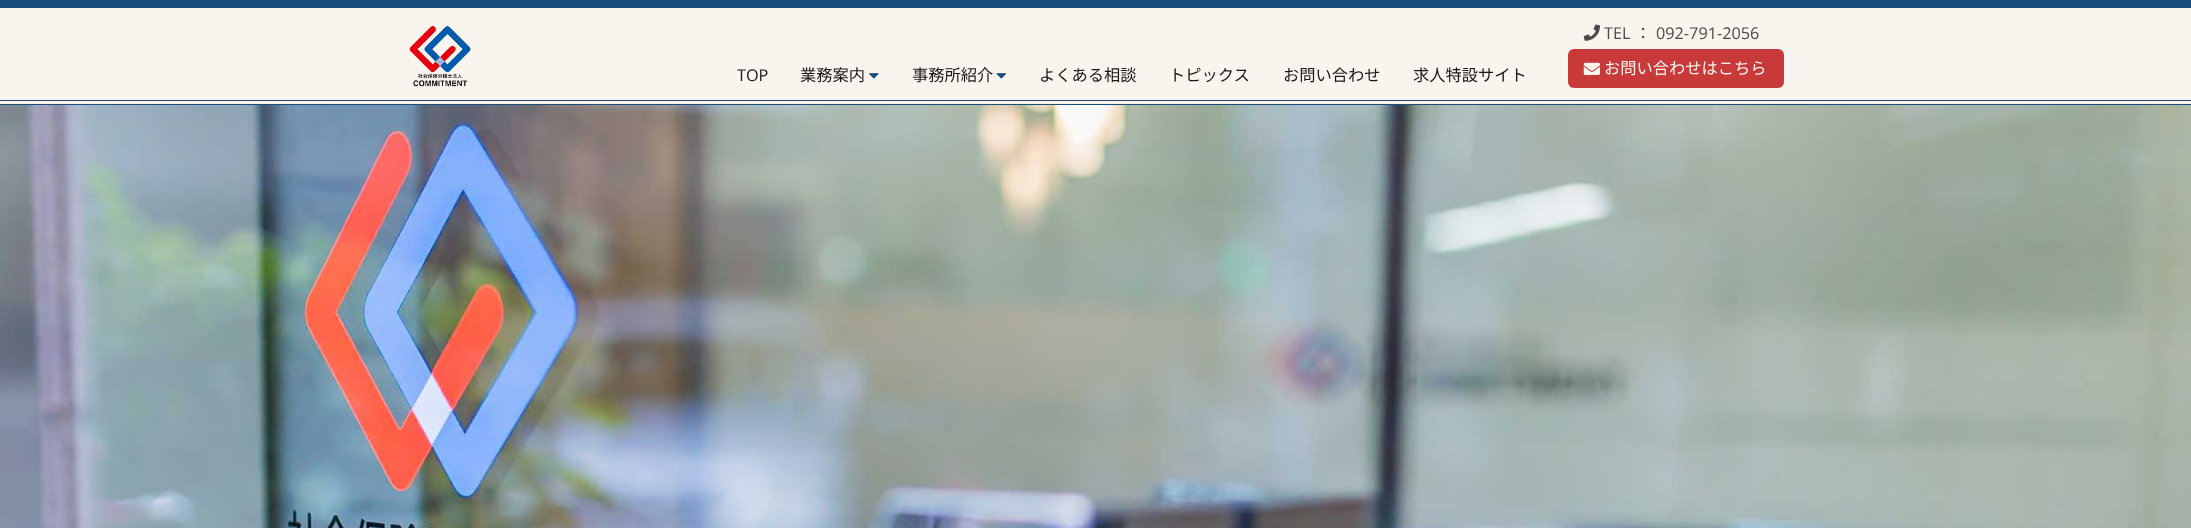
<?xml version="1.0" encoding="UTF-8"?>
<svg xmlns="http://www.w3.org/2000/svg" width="2191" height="528">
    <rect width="100%" height="100%" fill="#FFFFFF"/>
    <rect x="0" y="8" width="2191" height="96" fill="#F9F4EE"/>
    <rect x="0" y="0" width="2191" height="8" fill="#194E7C"/>
    <rect x="0" y="100" width="2191" height="1" fill="#194E7C"/>
    <rect x="0" y="104" width="2191" height="1" fill="#194E7C"/>
    <image x="409" y="25" width="62" height="62" href="img_01.png"/>
    <text x="737" y="81" font-family="Open Sans" font-size="16.25" fill="#191818">TOP</text>
    <text x="800" y="81" font-family="Noto Sans JP" font-size="16.25" font-weight="100" fill="#191818">業務案内</text>
    <image x="869" y="73" width="10" height="6" href="img_02.png"/>
    <text x="912" y="81" font-family="Noto Sans JP" font-size="16.25" font-weight="100" fill="#191818">事務所紹介</text>
    <image x="996" y="73" width="10" height="6" href="img_03.png"/>
    <text x="1039" y="81" font-family="Noto Sans JP" font-size="16.25" font-weight="100" fill="#191818">よくある相談</text>
    <text x="1169" y="81" font-family="Noto Sans JP" font-size="16.25" font-weight="100" fill="#191818">トピックス</text>
    <text x="1283" y="81" font-family="Noto Sans JP" font-size="16.25" font-weight="100" fill="#191818">お問い合わせ</text>
    <text x="1413" y="81" font-family="Noto Sans JP" font-size="16.25" font-weight="100" fill="#191818">求人特設サイト</text>
    <image x="1583" y="24" width="17" height="17" href="img_04.png"/>
    <text x="1604" y="39" font-family="Open Sans" font-size="16.25" fill="#4B4947">TEL</text>
    <text x="1635" y="39" font-family="Noto Sans JP" font-size="16.25" font-weight="100" fill="#4B4947">：</text>
    <text x="1656" y="39" font-family="Open Sans" font-size="16.25" fill="#4B4947">092-791-2056</text>
    <rect x="1568" y="49" width="216" height="39" rx="6" fill="#C83A3A"/>
    <image x="1583" y="62" width="17" height="13" href="img_05.png"/>
    <text x="1604" y="74" font-family="Noto Sans JP" font-size="16.25" font-weight="100" fill="#F9F4EE">お問い合わせはこちら</text>
    <image x="0" y="105" width="2191" height="423" href="img_06.png"/>
</svg>
